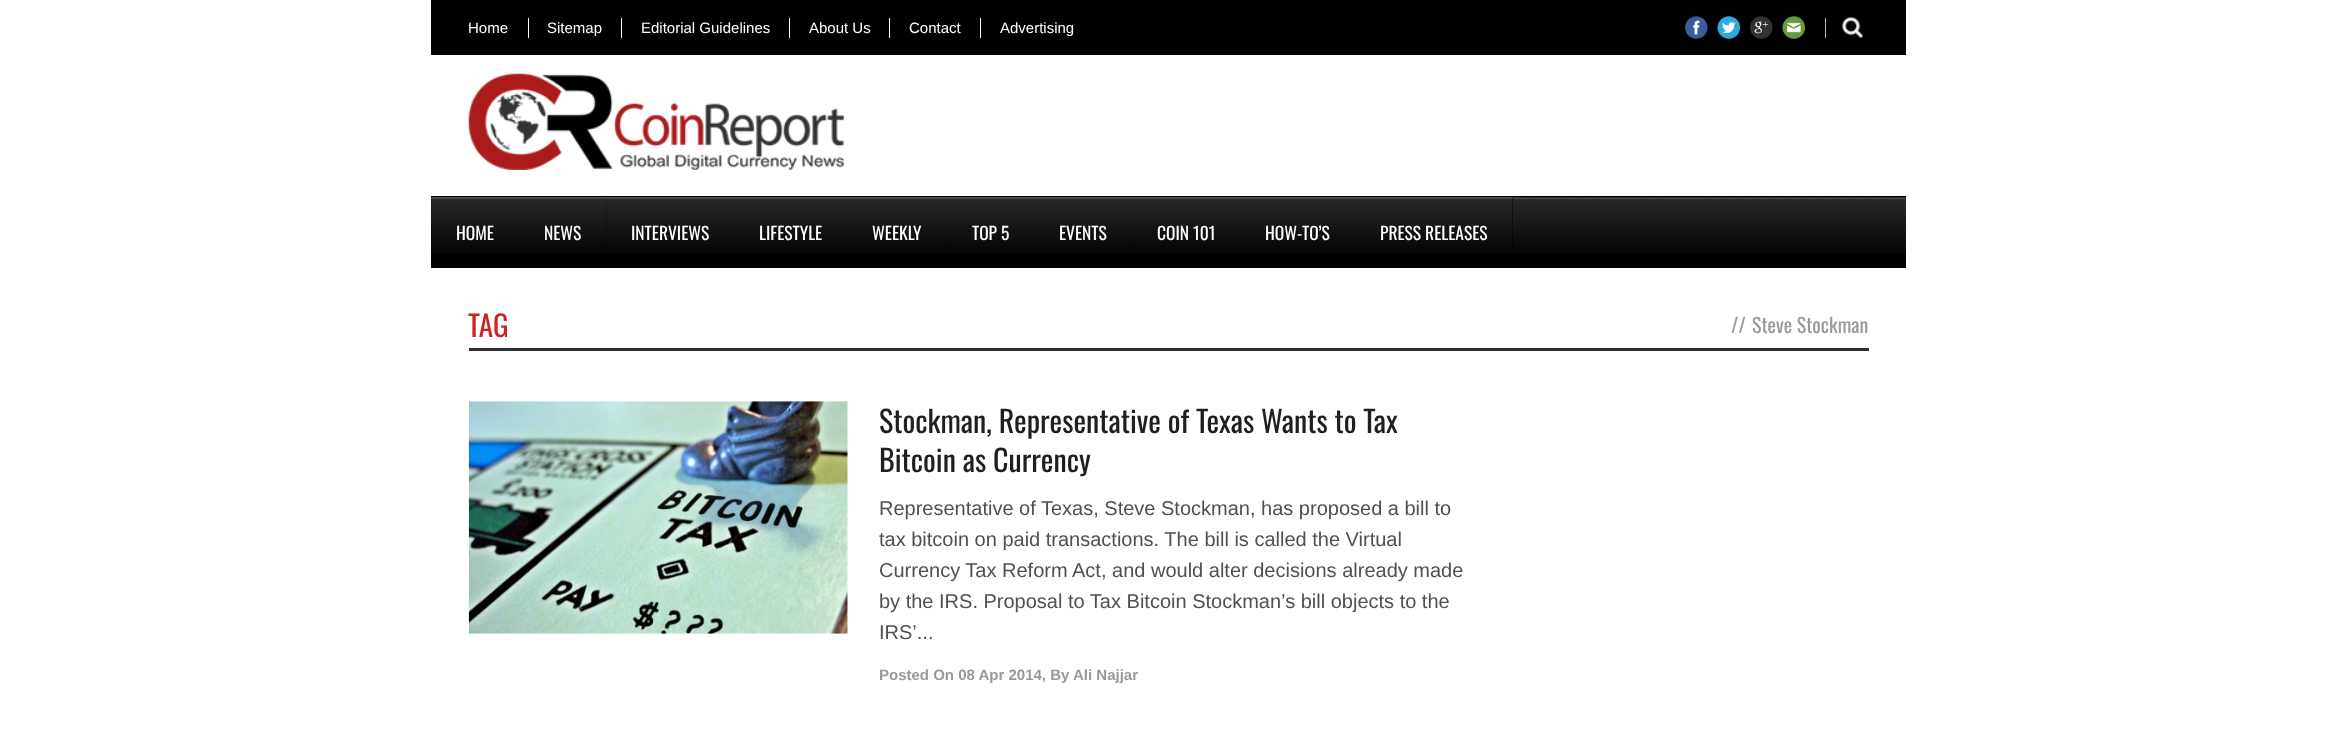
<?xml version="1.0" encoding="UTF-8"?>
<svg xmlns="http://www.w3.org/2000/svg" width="2336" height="752">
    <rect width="100%" height="100%" fill="#FFFFFF"/>
    <rect x="431" y="0" width="1475" height="55" fill="#000000"/>
    <text x="468" y="33" font-family="Liberation Sans" font-size="15" fill="#FFFFFF">Home</text>
    <rect x="528" y="18" width="1" height="20" fill="#FFFFFF"/>
    <text x="547" y="33" font-family="Liberation Sans" font-size="15" fill="#FFFFFF">Sitemap</text>
    <rect x="621" y="18" width="1" height="20" fill="#FFFFFF"/>
    <text x="641" y="33" font-family="Liberation Sans" font-size="15" fill="#FFFFFF">Editorial Guidelines</text>
    <rect x="789" y="18" width="1" height="20" fill="#FFFFFF"/>
    <text x="809" y="33" font-family="Liberation Sans" font-size="15" fill="#FFFFFF">About Us</text>
    <rect x="889" y="18" width="1" height="20" fill="#FFFFFF"/>
    <text x="909" y="33" font-family="Liberation Sans" font-size="15" fill="#FFFFFF">Contact</text>
    <rect x="980" y="18" width="1" height="20" fill="#FFFFFF"/>
    <text x="1000" y="33" font-family="Liberation Sans" font-size="15" fill="#FFFFFF">Advertising</text>
    <image x="1685" y="16" width="23" height="23" href="img_01.png"/>
    <image x="1717" y="16" width="23" height="23" href="img_02.png"/>
    <image x="1750" y="16" width="23" height="23" href="img_03.png"/>
    <image x="1782" y="16" width="23" height="23" href="img_04.png"/>
    <image x="1842" y="17" width="21" height="21" href="img_05.png"/>
    <rect x="1825" y="18" width="1" height="20" fill="#BABABA"/>
    <image x="468" y="73" width="376" height="97" href="img_06.png"/>
    <rect x="431" y="196" width="1475" height="72" fill="#000000"/>
    <image x="431" y="197" width="1475" height="57" href="img_07.png"/>
    <rect x="431" y="198" width="175" height="56" fill="#000000"/>
    <image x="431" y="197" width="88" height="57" href="img_08.png"/>
    <text x="456" y="240" font-family="Oswald" font-size="17.5" fill="#FFFFFF">HOME</text>
    <image x="518" y="197" width="89" height="57" href="img_09.png"/>
    <text x="544" y="240" font-family="Oswald" font-size="17.5" fill="#FFFFFF">NEWS</text>
    <rect x="606" y="198" width="907" height="56" fill="#000000"/>
    <image x="606" y="197" width="128" height="57" href="img_10.png"/>
    <text x="631" y="240" font-family="Oswald" font-size="17.5" fill="#FFFFFF">INTERVIEWS</text>
    <image x="733" y="197" width="115" height="57" href="img_11.png"/>
    <text x="759" y="240" font-family="Oswald" font-size="17.5" fill="#FFFFFF">LIFESTYLE</text>
    <image x="847" y="197" width="101" height="57" href="img_12.png"/>
    <text x="872" y="240" font-family="Oswald" font-size="17.5" fill="#FFFFFF">WEEKLY</text>
    <image x="947" y="197" width="87" height="57" href="img_13.png"/>
    <text x="972" y="240" font-family="Oswald" font-size="17.5" fill="#FFFFFF">TOP 5</text>
    <image x="1033" y="197" width="100" height="57" href="img_14.png"/>
    <text x="1059" y="240" font-family="Oswald" font-size="17.5" fill="#FFFFFF">EVENTS</text>
    <image x="1132" y="197" width="108" height="57" href="img_15.png"/>
    <text x="1157" y="240" font-family="Oswald" font-size="17.5" fill="#FFFFFF">COIN 101</text>
    <image x="1240" y="197" width="115" height="57" href="img_16.png"/>
    <text x="1265" y="240" font-family="Oswald" font-size="17.5" fill="#FFFFFF">HOW-TO’S</text>
    <image x="1355" y="197" width="158" height="57" href="img_17.png"/>
    <text x="1380" y="240" font-family="Oswald" font-size="17.5" fill="#FFFFFF">PRESS RELEASES</text>
    <rect x="469" y="348" width="1400" height="3" fill="#313131"/>
    <text x="468" y="337" font-family="Oswald" font-size="29" fill="#CF2121">TAG</text>
    <text x="1731" y="333" font-family="Oswald" font-size="20" fill="#999999">//</text>
    <text x="1752" y="333" font-family="Oswald" font-size="20" fill="#999999">Steve Stockman</text>
    <image x="468" y="401" width="380" height="233" href="img_18.png"/>
    <text font-family="Oswald" font-size="30" fill="#1F1F1F">
        <tspan x="879" y="433">Stockman, Representative of Texas Wants to Tax</tspan>
        <tspan x="879" y="472">Bitcoin as Currency</tspan>
    </text>
    <text font-family="Liberation Sans" font-size="20" fill="#505050">
        <tspan x="879" y="515">Representative of Texas, Steve Stockman, has proposed a bill to</tspan>
        <tspan x="879" y="546">tax bitcoin on paid transactions. The bill is called the Virtual</tspan>
        <tspan x="879" y="577">Currency Tax Reform Act, and would alter decisions already made</tspan>
        <tspan x="879" y="608">by the IRS. Proposal to Tax Bitcoin Stockman’s bill objects to the</tspan>
        <tspan x="879" y="639">IRS’...</tspan>
    </text>
    <text x="879" y="680" font-family="Liberation Sans" font-size="15" font-weight="700" fill="#999999">Posted On 08 Apr 2014, By</text>
    <text x="1073" y="680" font-family="Liberation Sans" font-size="15" font-weight="700" fill="#999999">Ali Najjar</text>
</svg>
